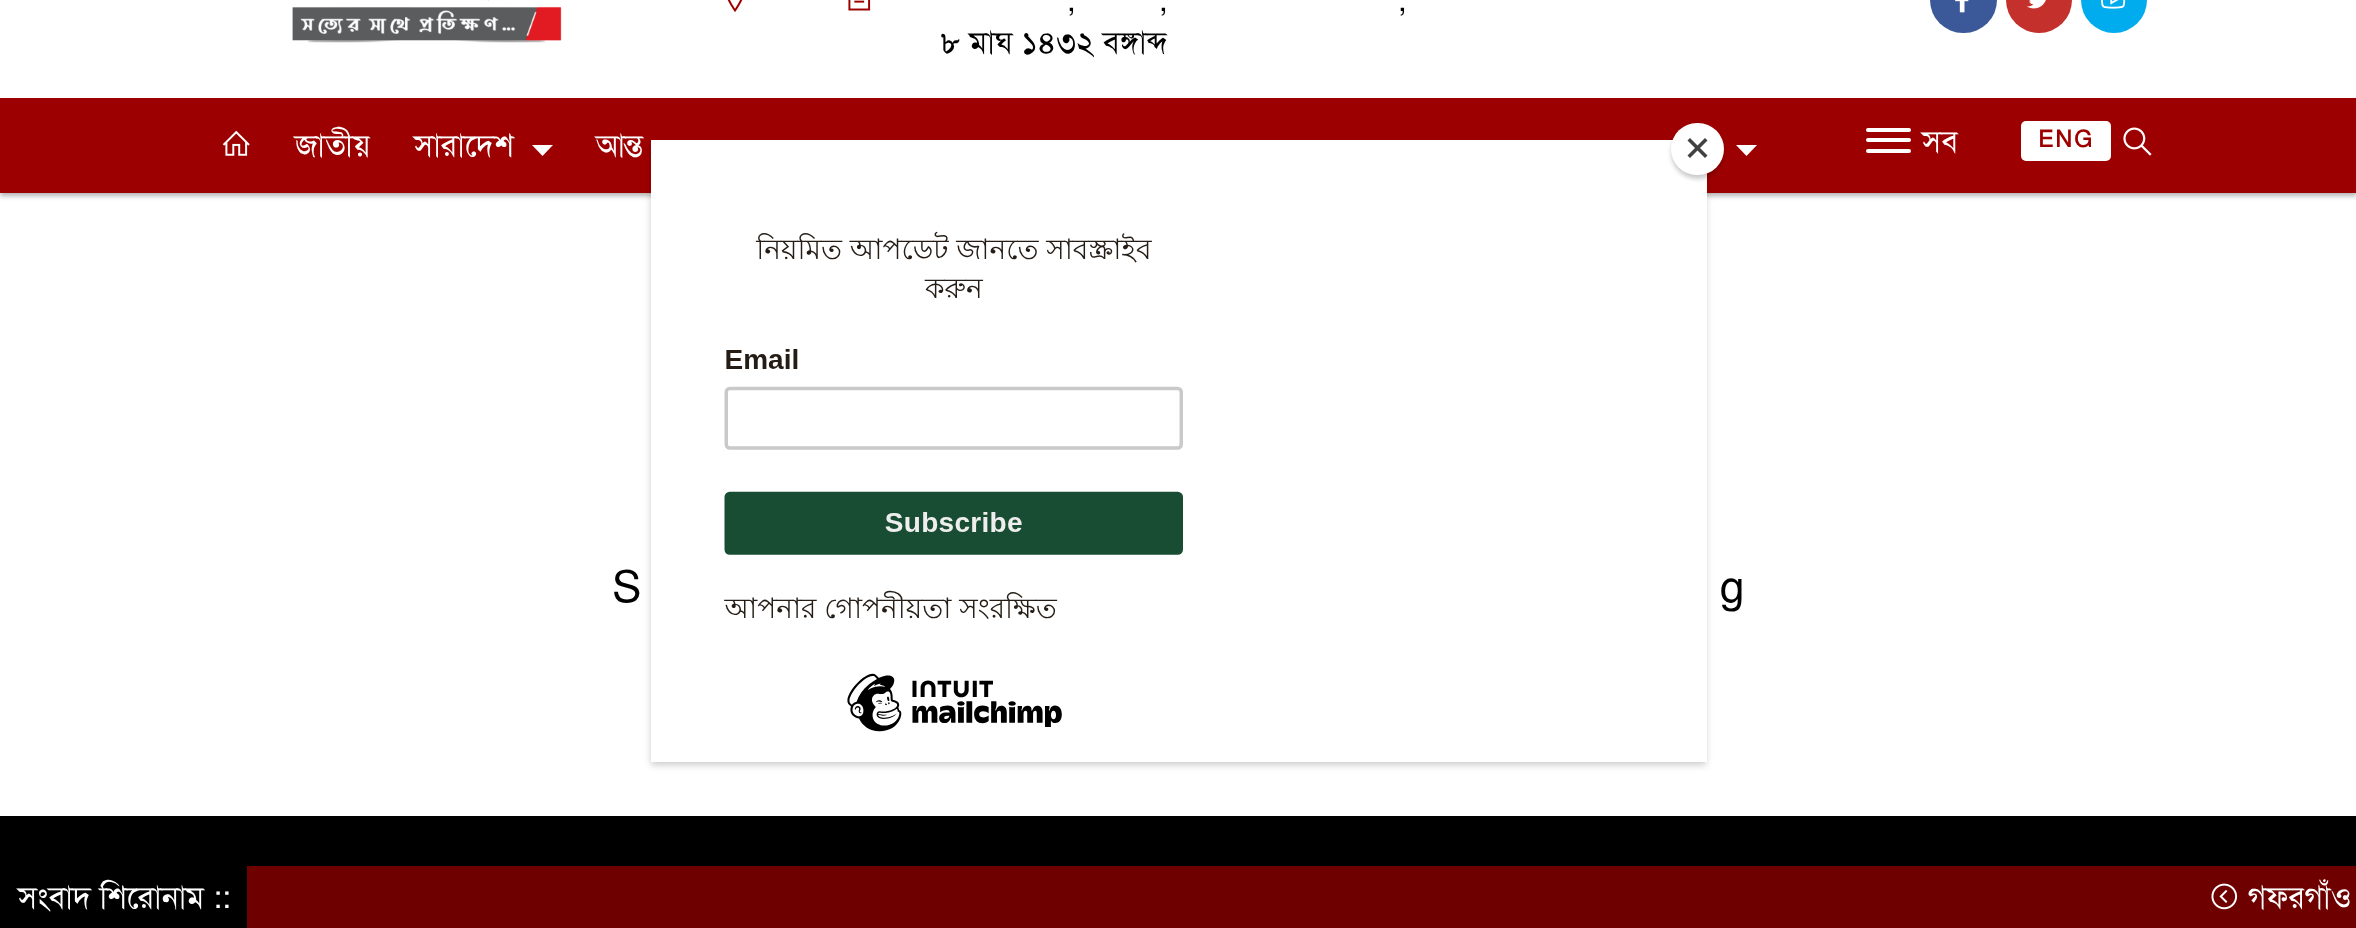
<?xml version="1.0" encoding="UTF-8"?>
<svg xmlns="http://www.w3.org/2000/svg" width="2356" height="928">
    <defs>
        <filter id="blur1" x="-50%" y="-200%" width="200%" height="500%"><feGaussianBlur stdDeviation="2.5"/></filter>
        <filter id="blur2" x="-50%" y="-200%" width="200%" height="500%"><feGaussianBlur stdDeviation="3.5"/></filter>
        <filter id="blur3" x="-50%" y="-200%" width="200%" height="500%"><feGaussianBlur stdDeviation="2"/></filter>
    </defs>
    <rect width="100%" height="100%" fill="#FFFFFF"/>
    <image x="292" y="0" width="270" height="43" href="img_01.png"/>
    <image x="727" y="0" width="16" height="12" href="img_02.png"/>
    <image x="848" y="0" width="23" height="11" href="img_03.png"/>
    <text x="1067" y="11" font-family="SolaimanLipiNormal" font-size="31.5" fill="#000000">,</text>
    <text x="1159" y="11" font-family="SolaimanLipiNormal" font-size="31.5" fill="#000000">,</text>
    <text x="1398" y="11" font-family="SolaimanLipiNormal" font-size="31.5" fill="#000000">,</text>
    <text x="941" y="53" font-family="SolaimanLipiNormal" font-size="31.5" fill="#000000">৮ মাঘ ১৪৩২ বঙ্গাব্দ</text>
    <rect x="1930" y="-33" width="67" height="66" rx="33" fill="#3B5998"/>
    <image x="1955" y="0" width="14" height="13" href="img_04.png"/>
    <circle cx="2039" cy="0" r="33" fill="#C4302B"/>
    <image x="2026" y="0" width="20" height="9" href="img_05.png"/>
    <circle cx="2114" cy="0" r="33" fill="#00ACEE"/>
    <image x="2101" y="0" width="25" height="9" href="img_06.png"/>
    <rect x="0" y="102" width="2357" height="94" fill="#000000" fill-opacity="0.3" filter="url(#blur1)"/>
    <rect x="0" y="98" width="2356" height="95" fill="#9D0000"/>
    <image x="222" y="130" width="28" height="26" href="img_07.png"/>
    <text x="295" y="156" font-family="SolaimanLipiNormal" font-size="31.5" fill="#FFFFFF">জাতীয়</text>
    <text x="414" y="156" font-family="SolaimanLipiNormal" font-size="31.5" fill="#FFFFFF">সারাদেশ</text>
    <path d="M 532 145 H 553 L 542.5 156 Z" fill="#FFFFFF"/>
    <text x="596" y="156" font-family="SolaimanLipiNormal" font-size="31.5" fill="#FFFFFF">আন্ত</text>
    <path d="M 1736 145 H 1757 L 1746.5 156 Z" fill="#FFFFFF"/>
    <rect x="1866" y="128" width="45" height="4" rx="2" fill="#FFFFFF"/>
    <rect x="1866" y="138" width="45" height="4" rx="2" fill="#FFFFFF"/>
    <rect x="1866" y="149" width="45" height="4" rx="2" fill="#FFFFFF"/>
    <text x="1922" y="152" font-family="SolaimanLipiNormal" font-size="31.5" fill="#FFFFFF">সব</text>
    <rect x="2021" y="121" width="90" height="40" rx="5" fill="#FFFFFF"/>
    <text x="2038" y="147" font-family="SolaimanLipiNormal" font-size="23" font-weight="700" letter-spacing="2" fill="#9D0000">ENG</text>
    <image x="2123" y="127" width="29" height="29" href="img_08.png"/>
    <text x="612" y="602" font-family="SolaimanLipiNormal" font-size="44" letter-spacing="1" fill="#000000">S</text>
    <text x="1720" y="602" font-family="SolaimanLipiNormal" font-size="44" letter-spacing="1" fill="#000000">g</text>
    <rect x="0" y="816" width="2356" height="50" fill="#000000"/>
    <rect x="247" y="866" width="2109" height="62" fill="#6F0000"/>
    <rect x="0" y="866" width="247" height="62" fill="#000000"/>
    <text x="18" y="908" font-family="SolaimanLipiNormal" font-size="31.5" fill="#FFFFFF">সংবাদ শিরোনাম ::</text>
    <image x="2211" y="883" width="27" height="27" href="img_09.png"/>
    <text x="2248" y="908" font-family="SolaimanLipiNormal" font-size="31.5" fill="#FFFFFF">গফরগাঁও</text>
    <rect x="651" y="144" width="1055" height="621" fill="#000000" fill-opacity="0.2" filter="url(#blur2)"/>
    <image x="651" y="140" width="1056" height="622" href="img_10.png"/>
    <rect x="1671" y="126" width="53" height="53" rx="26.5" fill="#000000" fill-opacity="0.2" filter="url(#blur3)"/>
    <rect x="1671" y="123" width="53" height="52" rx="26" fill="#FFFFFF"/>
    <path d="M 1705 138 L 1707.5 140.5 L 1690 158 L 1687.5 155.5 Z" fill="#414141"/>
    <path d="M 1687.5 140.5 L 1690 138 L 1707.5 155.5 L 1705 158 Z" fill="#414141"/>
</svg>
